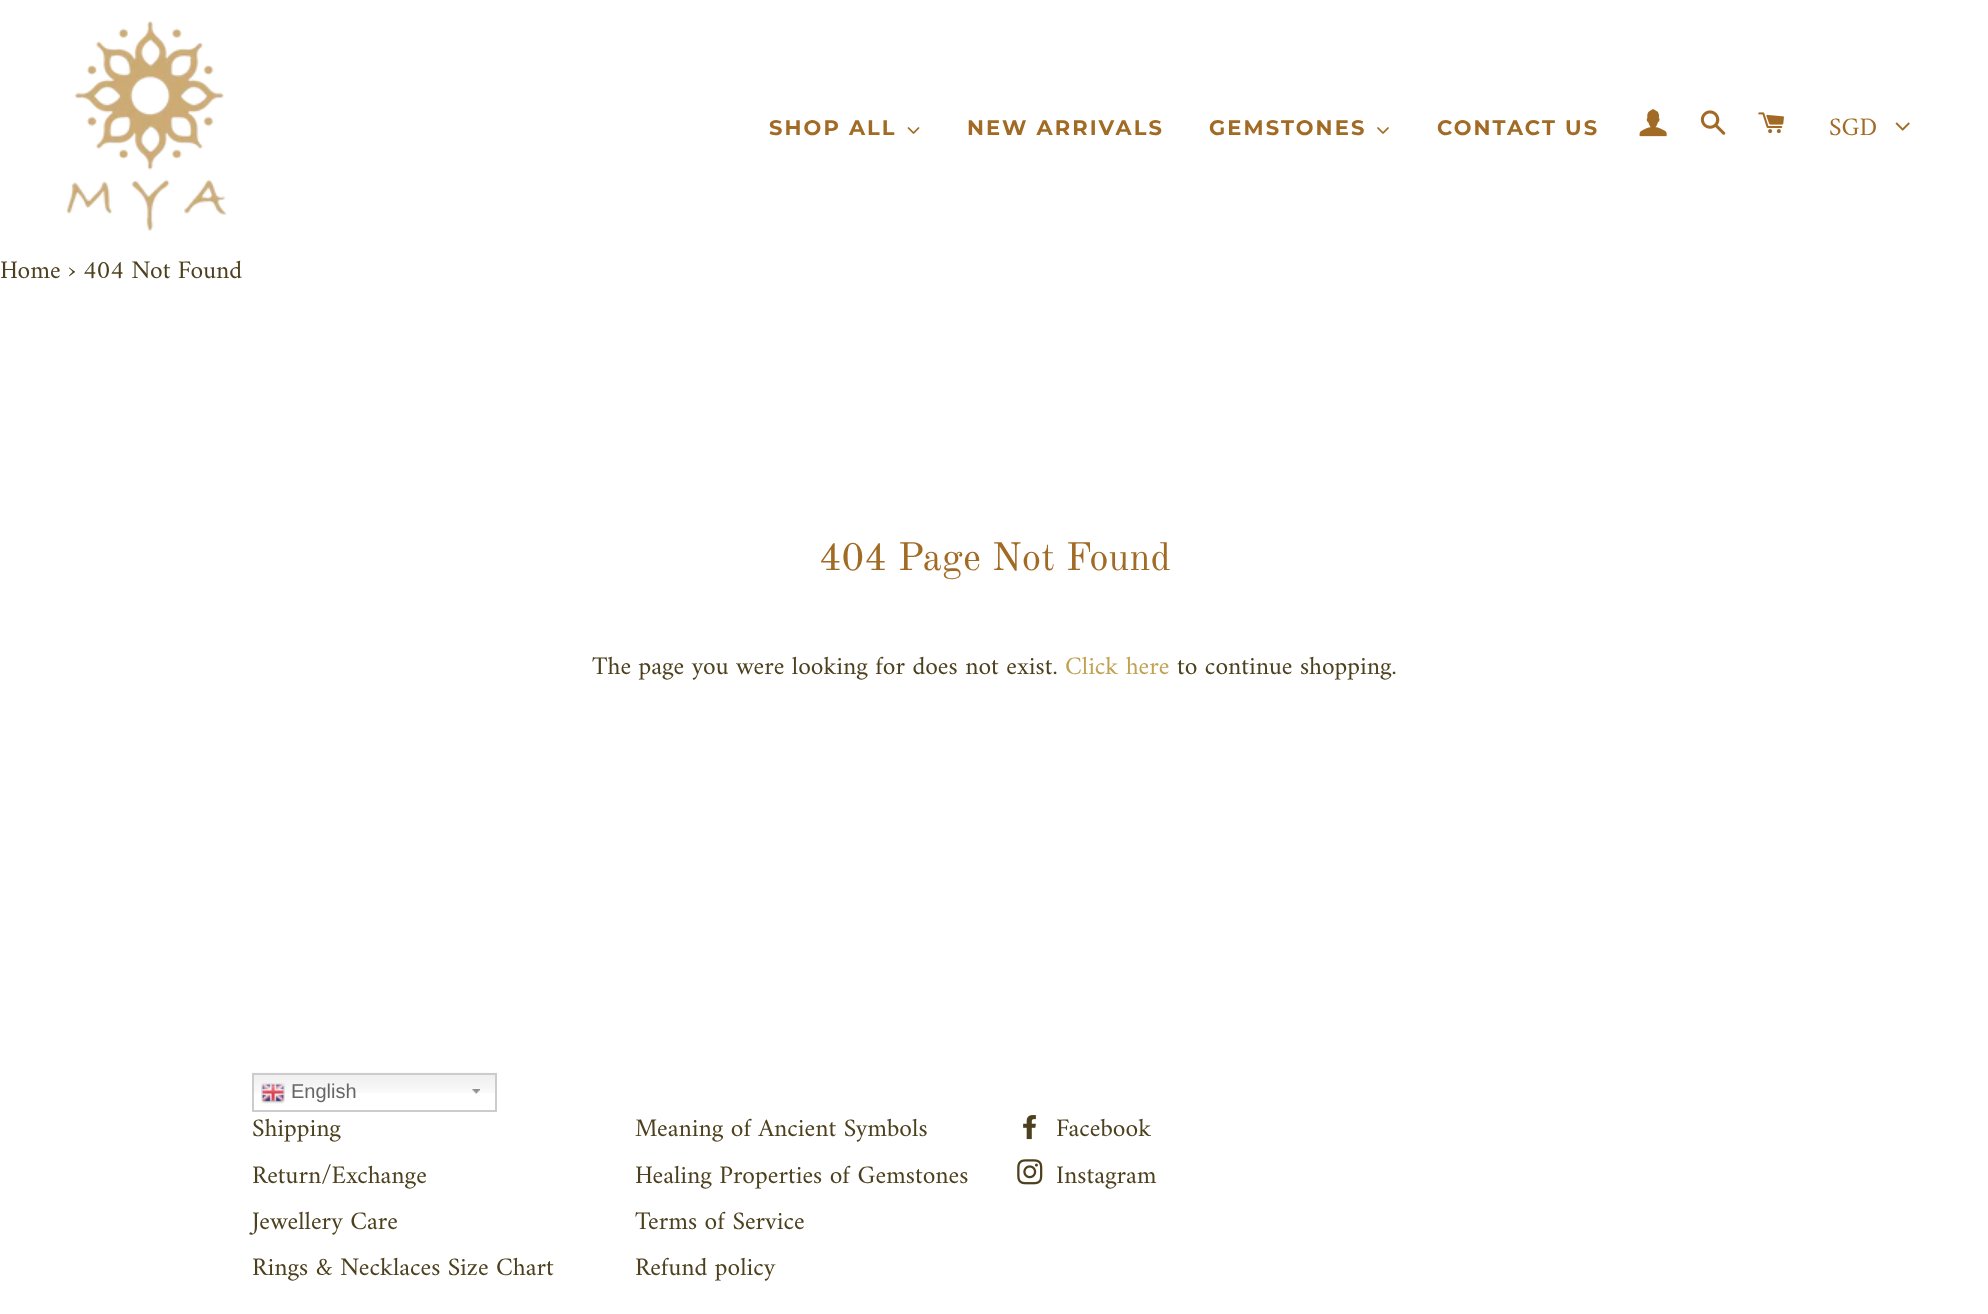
<?xml version="1.0" encoding="UTF-8"?>
<svg xmlns="http://www.w3.org/2000/svg" width="1988" height="1314">
    <rect width="100%" height="100%" fill="#FFFFFF"/>
    <image x="66" y="21" width="161" height="210" href="img_01.png"/>
    <text x="769" y="135" font-family="Montserrat" font-size="21" font-weight="700" letter-spacing="2.1" fill="#A26B25">SHOP ALL</text>
    <image x="907" y="127" width="13" height="7" href="img_02.png"/>
    <text x="967" y="135" font-family="Montserrat" font-size="21" font-weight="700" letter-spacing="2.1" fill="#A26B25">NEW ARRIVALS</text>
    <text x="1209" y="135" font-family="Montserrat" font-size="21" font-weight="700" letter-spacing="2.1" fill="#A26B25">GEMSTONES</text>
    <image x="1377" y="127" width="12" height="7" href="img_03.png"/>
    <text x="1437" y="135" font-family="Montserrat" font-size="21" font-weight="700" letter-spacing="2.1" fill="#A26B25">CONTACT US</text>
    <image x="1639" y="109" width="28" height="28" href="img_04.png"/>
    <image x="1700" y="110" width="26" height="25" href="img_05.png"/>
    <image x="1758" y="112" width="26" height="22" href="img_06.png"/>
    <text x="1829" y="135" font-family="Amiri" font-size="25.5" fill="#A26B25">SGD</text>
    <image x="1895" y="122" width="15" height="9" href="img_07.png"/>
    <text x="0" y="278" font-family="Amiri" font-size="25.5" fill="#4D401F">Home › 404 Not Found</text>
    <text x="819" y="570" font-family="Old Standard TT" font-size="39" fill="#A26B25">404 Page Not Found</text>
    <text x="592" y="674" font-family="Amiri" font-size="25.5" fill="#4D401F">The page you were looking for does not exist.</text>
    <text x="1065" y="674" font-family="Amiri" font-size="25.5" fill="#C1A254">Click here</text>
    <text x="1177" y="674" font-family="Amiri" font-size="25.5" fill="#4D401F">to continue shopping.</text>
    <image x="252" y="1072" width="245" height="21" href="img_08.png"/>
    <image x="472" y="1089" width="8" height="5" href="img_09.png"/>
    <rect x="253" y="1074" width="243" height="37" fill="none" stroke="#CCCCCC" stroke-width="2"/>
    <image x="261" y="1083" width="24" height="21" href="img_10.png"/>
    <text x="291" y="1098" font-family="Liberation Sans" font-size="20" fill="#666666">English</text>
    <text font-family="Amiri" font-size="25.5" fill="#4D401F">
        <tspan x="252" y="1136">Shipping</tspan>
        <tspan x="252" y="1183">Return/Exchange</tspan>
        <tspan x="252" y="1229">Jewellery Care</tspan>
        <tspan x="252" y="1275">Rings &amp; Necklaces Size Chart</tspan>
    </text>
    <text font-family="Amiri" font-size="25.5" fill="#4D401F">
        <tspan x="635" y="1136">Meaning of Ancient Symbols</tspan>
        <tspan x="635" y="1183">Healing Properties of Gemstones</tspan>
        <tspan x="635" y="1229">Terms of Service</tspan>
        <tspan x="635" y="1275">Refund policy</tspan>
    </text>
    <image x="1023" y="1115" width="13" height="25" href="img_11.png"/>
    <text x="1056" y="1136" font-family="Amiri" font-size="25.5" fill="#4D401F">Facebook</text>
    <image x="1017" y="1159" width="26" height="26" href="img_12.png"/>
    <text x="1056" y="1183" font-family="Amiri" font-size="25.5" fill="#4D401F">Instagram</text>
</svg>
